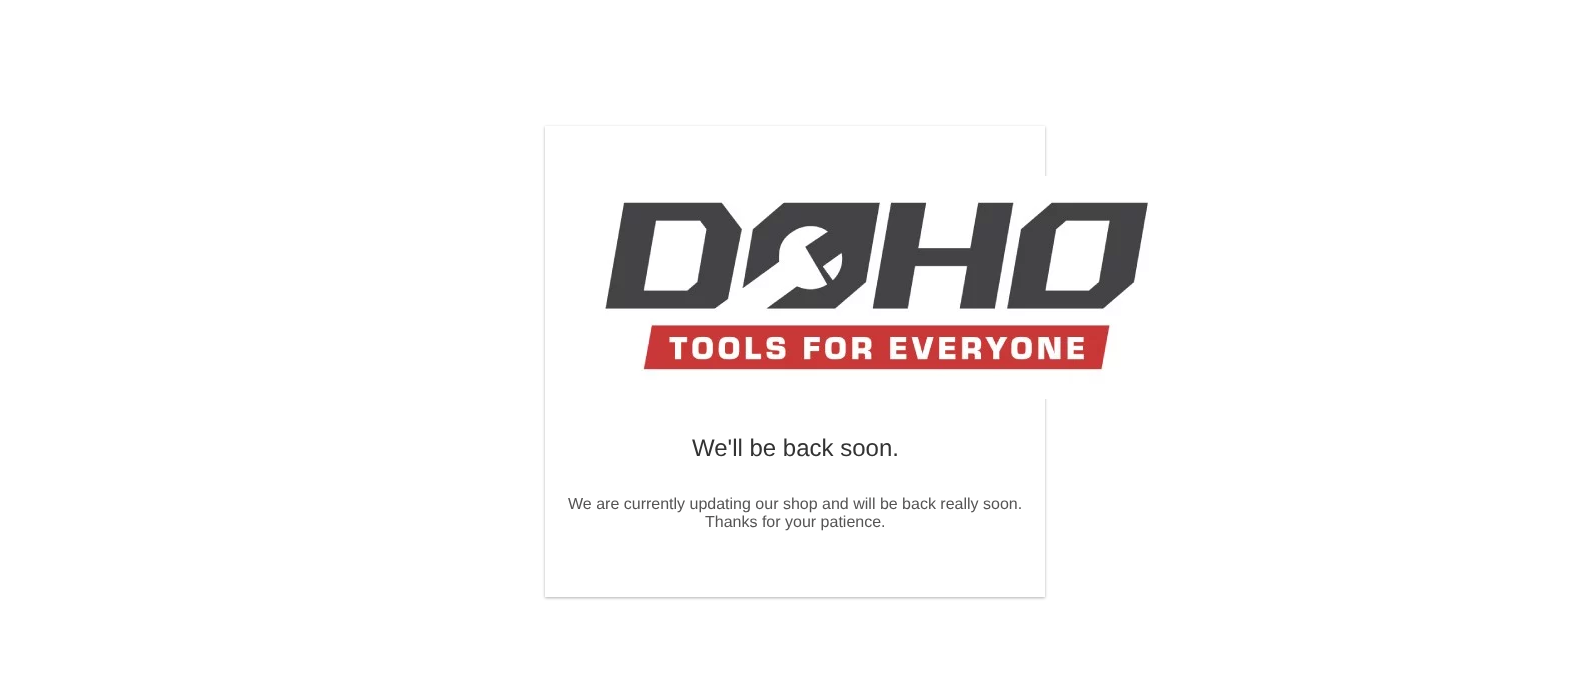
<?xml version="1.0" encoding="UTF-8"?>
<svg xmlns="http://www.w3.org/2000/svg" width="1590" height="674">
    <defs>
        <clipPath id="clip1"><path d="M 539 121 H 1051 V 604 H 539 Z M 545 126 H 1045 V 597 H 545 Z" clip-rule="evenodd"/></clipPath>
        <filter id="blur1" x="-50%" y="-200%" width="200%" height="500%"><feGaussianBlur stdDeviation="1.5"/></filter>
    </defs>
    <rect width="100%" height="100%" fill="#FFFFFF"/>
    <g clip-path="url(#clip1)">
        <rect x="545" y="127" width="500" height="471" fill="#000000" fill-opacity="0.3" filter="url(#blur1)"/>
    </g>
    <image x="605" y="176" width="544" height="223" href="img_01.png"/>
    <text x="692" y="456" font-family="Liberation Sans" font-size="24" fill="#333333">We'll be back soon.</text>
    <text x="568" y="509" font-family="Liberation Sans" font-size="16" fill="#555454">We are currently updating our shop and will be back really soon.</text>
    <text x="705" y="527" font-family="Liberation Sans" font-size="16" fill="#555454">Thanks for your patience.</text>
</svg>
